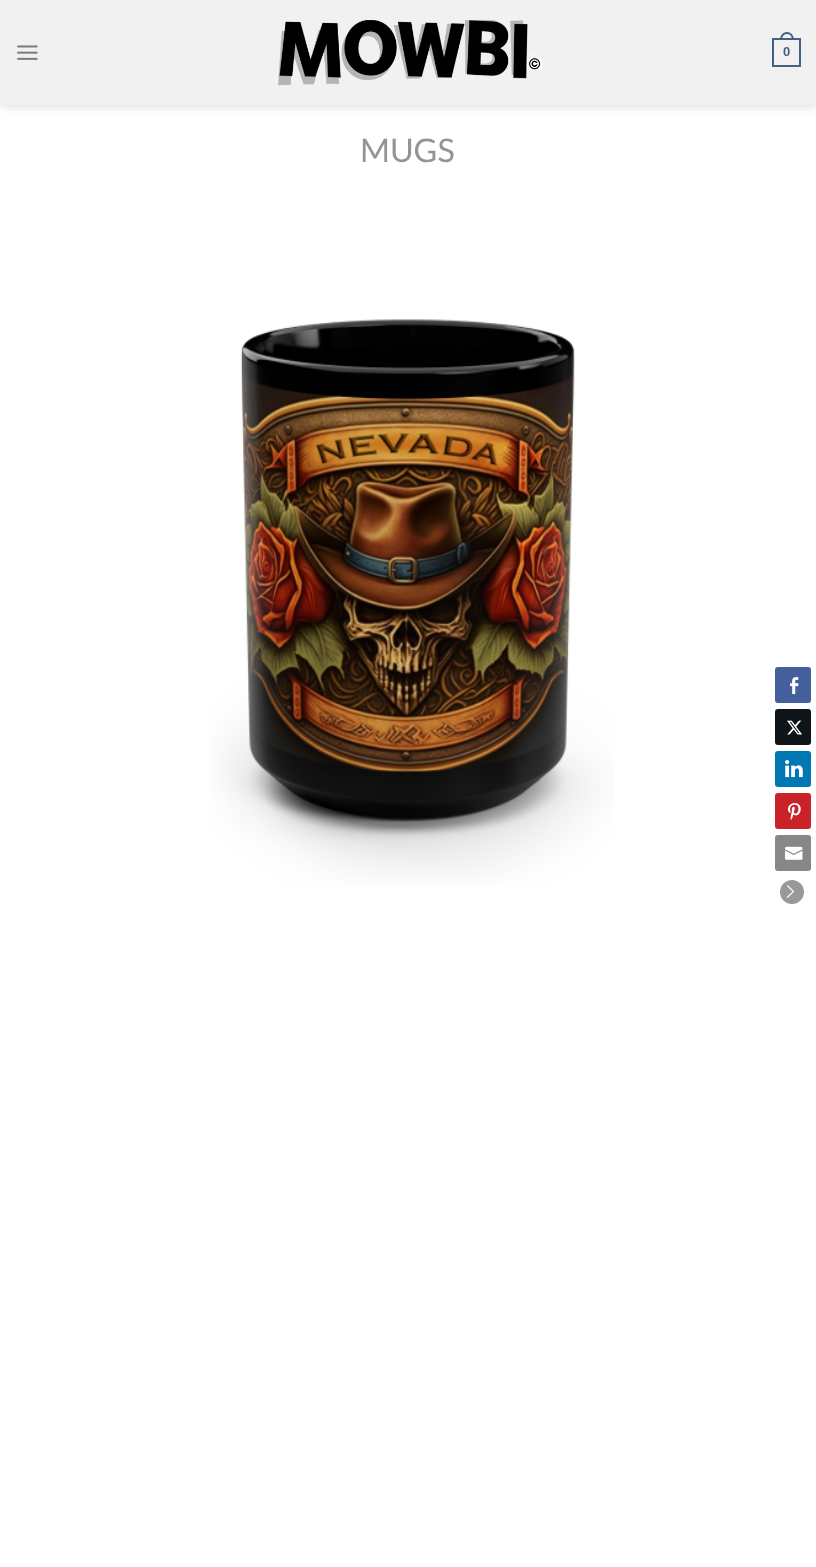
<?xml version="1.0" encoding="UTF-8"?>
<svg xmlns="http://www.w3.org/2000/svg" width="816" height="1567">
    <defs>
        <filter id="blur1" x="-50%" y="-200%" width="200%" height="500%"><feGaussianBlur stdDeviation="5"/></filter>
    </defs>
    <rect width="100%" height="100%" fill="#FFFFFF"/>
    <rect x="1" y="1" width="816" height="105" fill="#000000" fill-opacity="0.15" filter="url(#blur1)"/>
    <rect x="0" y="0" width="816" height="105" fill="#F1F1F1"/>
    <image x="17" y="45" width="21" height="15" href="img_01.png"/>
    <image x="278" y="20" width="264" height="66" href="img_02.png"/>
    <rect x="773" y="39" width="27" height="27" fill="none" stroke="#446084" stroke-width="2"/>
    <path d="M 787 32 C 791.5 32 794 36 794 40 H 780 C 780 36 782.5 32 787 32 Z M 787 34 C 790.5 34 792 37 792 40 H 782 C 782 37 783.5 34 787 34 Z" fill="#446084" fill-rule="evenodd"/>
    <text x="783" y="56" font-family="Liberation Sans" font-size="13" font-weight="700" fill="#446084">0</text>
    <text x="360" y="162" font-family="Lato" font-size="32.5" fill="#949494">MUGS</text>
    <image x="209" y="319" width="405" height="568" href="img_03.png"/>
    <rect x="775" y="667" width="36" height="36" rx="3" fill="#43609C"/>
    <image x="790" y="677" width="9" height="18" href="img_04.png"/>
    <rect x="775" y="709" width="36" height="36" rx="3" fill="#0F1419"/>
    <image x="787" y="720" width="15" height="15" href="img_05.png"/>
    <rect x="775" y="751" width="36" height="36" rx="3" fill="#0077B5"/>
    <image x="785" y="760" width="18" height="18" href="img_06.png"/>
    <rect x="775" y="793" width="36" height="36" rx="3" fill="#C92228"/>
    <image x="788" y="803" width="13" height="17" href="img_07.png"/>
    <rect x="775" y="835" width="36" height="36" rx="3" fill="#878787"/>
    <image x="785" y="846" width="18" height="14" href="img_08.png"/>
    <circle cx="792" cy="892" r="12" fill="#999999"/>
    <image x="786" y="885" width="9" height="13" href="img_09.png"/>
</svg>
